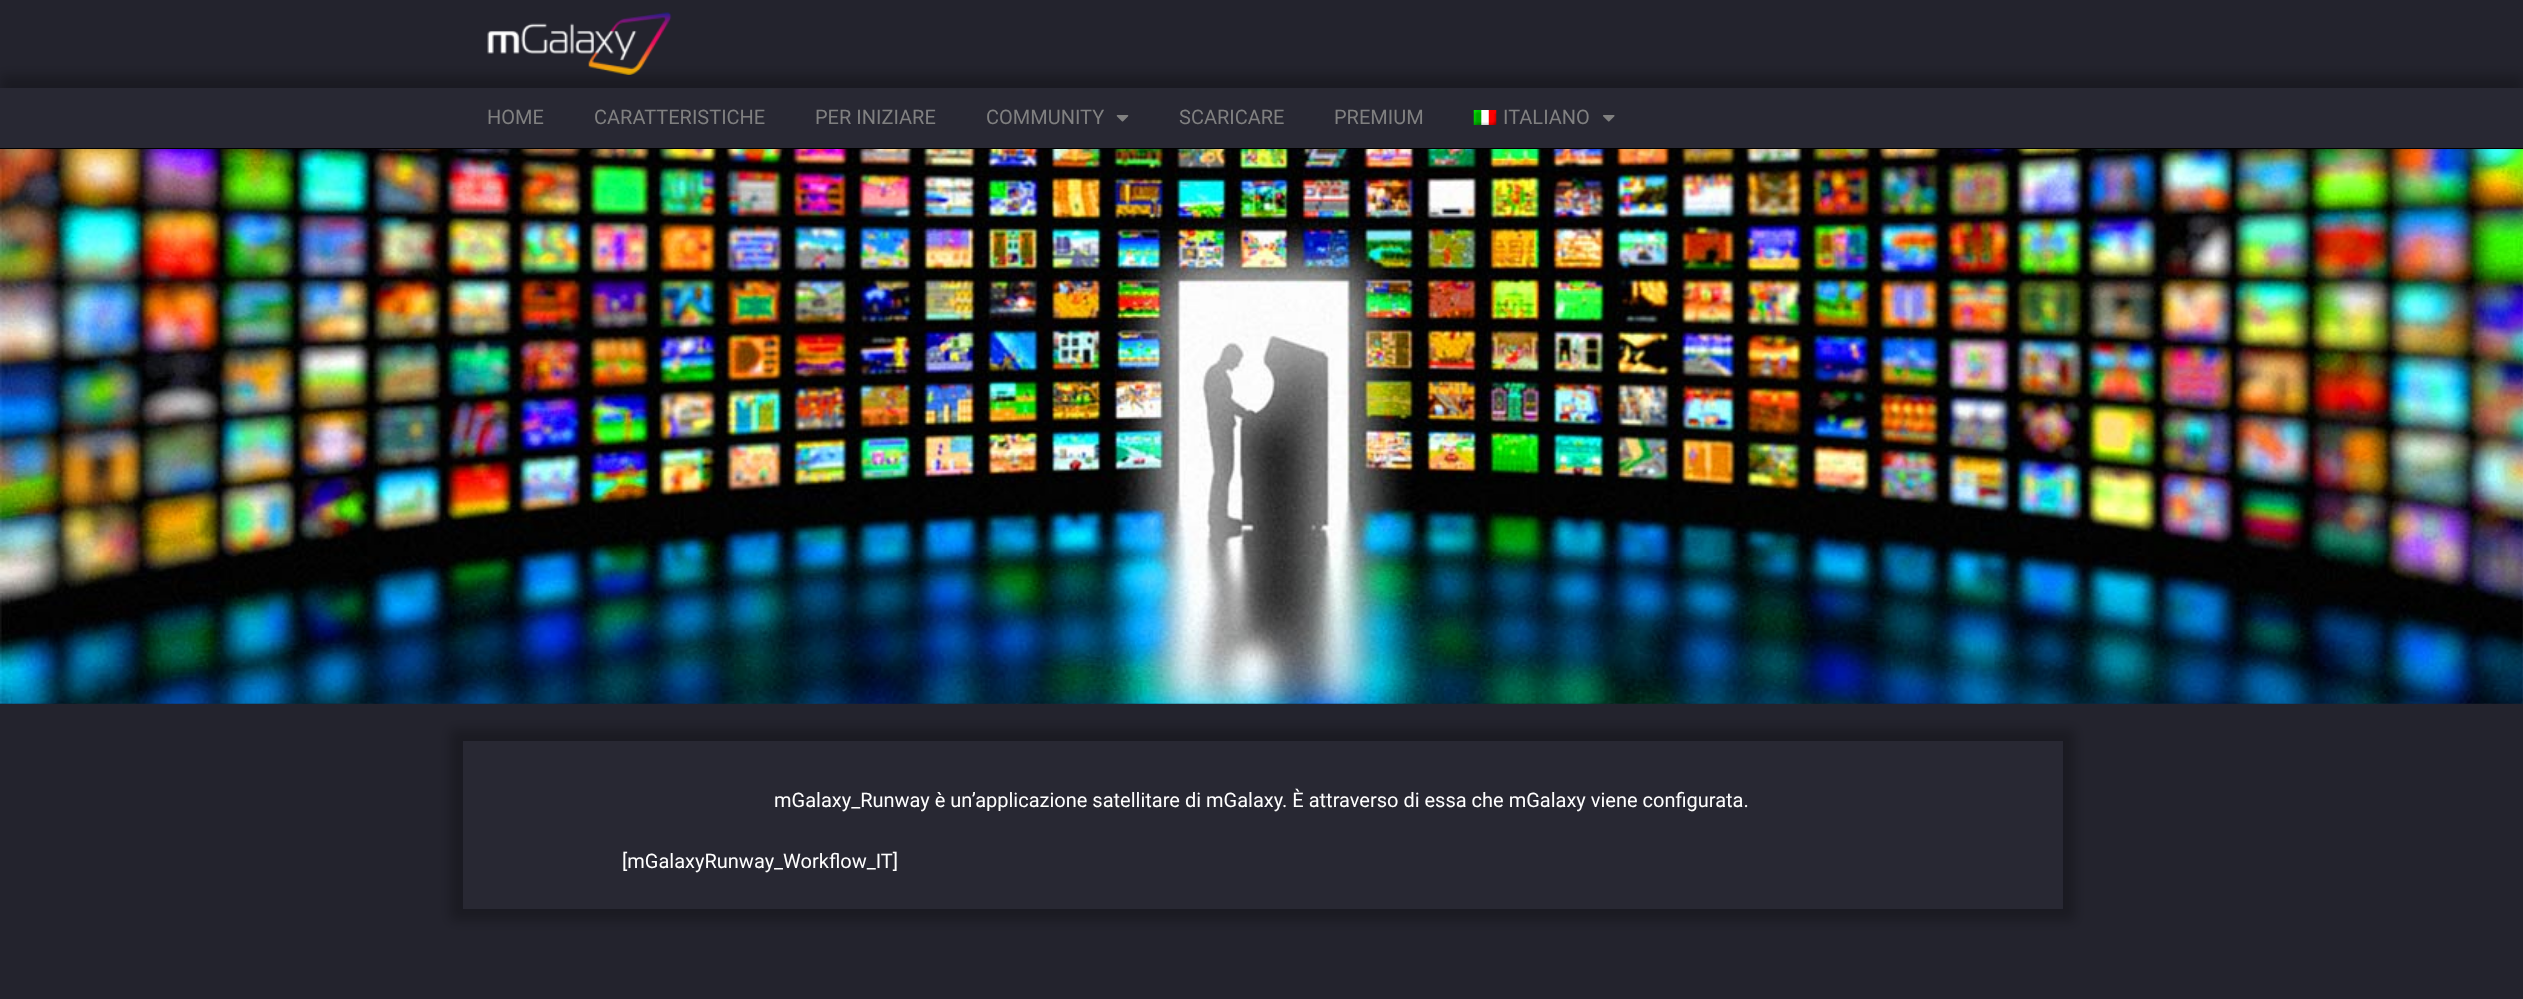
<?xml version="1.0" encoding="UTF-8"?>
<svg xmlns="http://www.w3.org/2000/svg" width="2523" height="999">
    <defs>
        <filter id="blur1" x="-50%" y="-200%" width="200%" height="500%"><feGaussianBlur stdDeviation="6"/></filter>
    </defs>
    <rect width="100%" height="100%" fill="#23232D"/>
    <image x="487" y="12" width="185" height="63" href="img_01.png"/>
    <image x="0" y="149" width="2523" height="555" href="img_05.png"/>
    <rect x="0" y="75" width="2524" height="61" fill="#000000" fill-opacity="0.25" filter="url(#blur1)"/>
    <rect x="0" y="88" width="2523" height="60" fill="#282833"/>
    <rect x="0" y="148" width="2523" height="1" fill="#000000"/>
    <text x="487" y="124" font-family="Roboto" font-size="20" fill="#808080">HOME</text>
    <text x="594" y="124" font-family="Roboto" font-size="20" fill="#808080">CARATTERISTICHE</text>
    <text x="815" y="124" font-family="Roboto" font-size="20" fill="#808080">PER INIZIARE</text>
    <text x="986" y="124" font-family="Roboto" font-size="20" fill="#808080">COMMUNITY</text>
    <image x="1116" y="115" width="13" height="7" href="img_02.png"/>
    <text x="1179" y="124" font-family="Roboto" font-size="20" fill="#808080">SCARICARE</text>
    <text x="1334" y="124" font-family="Roboto" font-size="20" fill="#808080">PREMIUM</text>
    <image x="1473" y="110" width="24" height="15" href="img_03.png"/>
    <text x="1503" y="124" font-family="Roboto" font-size="20" fill="#808080">ITALIANO</text>
    <image x="1603" y="115" width="12" height="7" href="img_04.png"/>
    <rect x="450" y="729" width="1625" height="192" fill="#000000" fill-opacity="0.25" filter="url(#blur1)"/>
    <rect x="463" y="741" width="1600" height="168" fill="#282833"/>
    <text x="774" y="807" font-family="Roboto" font-size="20" fill="#FFFFFF">mGalaxy_Runway è un’applicazione satellitare di mGalaxy. È attraverso di essa che mGalaxy viene configurata.</text>
    <text x="622" y="868" font-family="Roboto" font-size="20" fill="#FFFFFF">[mGalaxyRunway_Workflow_IT]</text>
</svg>
